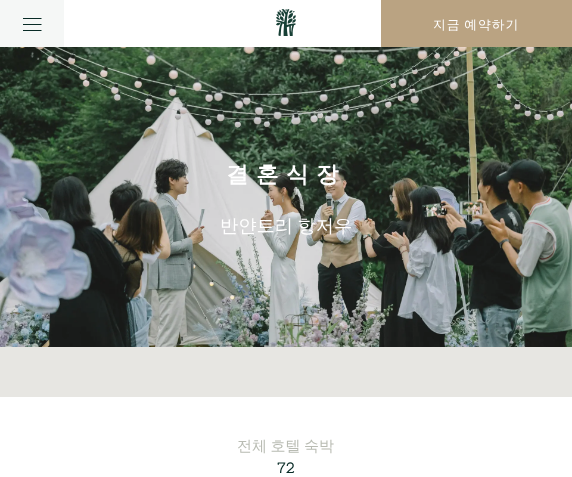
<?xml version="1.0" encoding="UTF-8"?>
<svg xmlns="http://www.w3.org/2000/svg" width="572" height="477">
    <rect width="100%" height="100%" fill="#E7E6E2"/>
    <rect x="64" y="0" width="317" height="47" fill="#FFFFFF"/>
    <rect x="0" y="0" width="64" height="47" fill="#F5F7F6"/>
    <path d="M 23 24.5 H 41.5 M 23 18.5 H 41.5 M 23 30.5 H 41.5" fill="none" stroke="#082B26"/>
    <image x="276" y="9" width="20" height="27" href="img_01.png"/>
    <rect x="381" y="0" width="191" height="47" fill="#BAA382"/>
    <text x="433" y="29" word-spacing="-1" font-family="WenQuanYi Zen Hei" font-size="12.75" font-weight="500" letter-spacing="1" fill="#FFFFFF">지금 예약하기</text>
    <image x="0" y="47" width="572" height="300" href="img_02.png"/>
    <text x="226" y="182" font-family="WenQuanYi Zen Hei" font-size="22.5" font-weight="700" letter-spacing="7.5" fill="#FFFFFF">결혼식장</text>
    <text x="220" y="232" word-spacing="-1" font-family="WenQuanYi Zen Hei" font-size="18.25" font-weight="500" fill="#FFFFFF">반얀트리 항저우</text>
    <rect x="0" y="397" width="572" height="80" fill="#FFFFFF"/>
    <text x="237" y="451" word-spacing="-1" font-family="WenQuanYi Zen Hei" font-size="15" font-weight="500" fill="#B9BCB3">전체 호텔 숙박</text>
    <text x="277" y="473" font-family="Niramit" font-size="15" fill="#082B26">72</text>
</svg>
